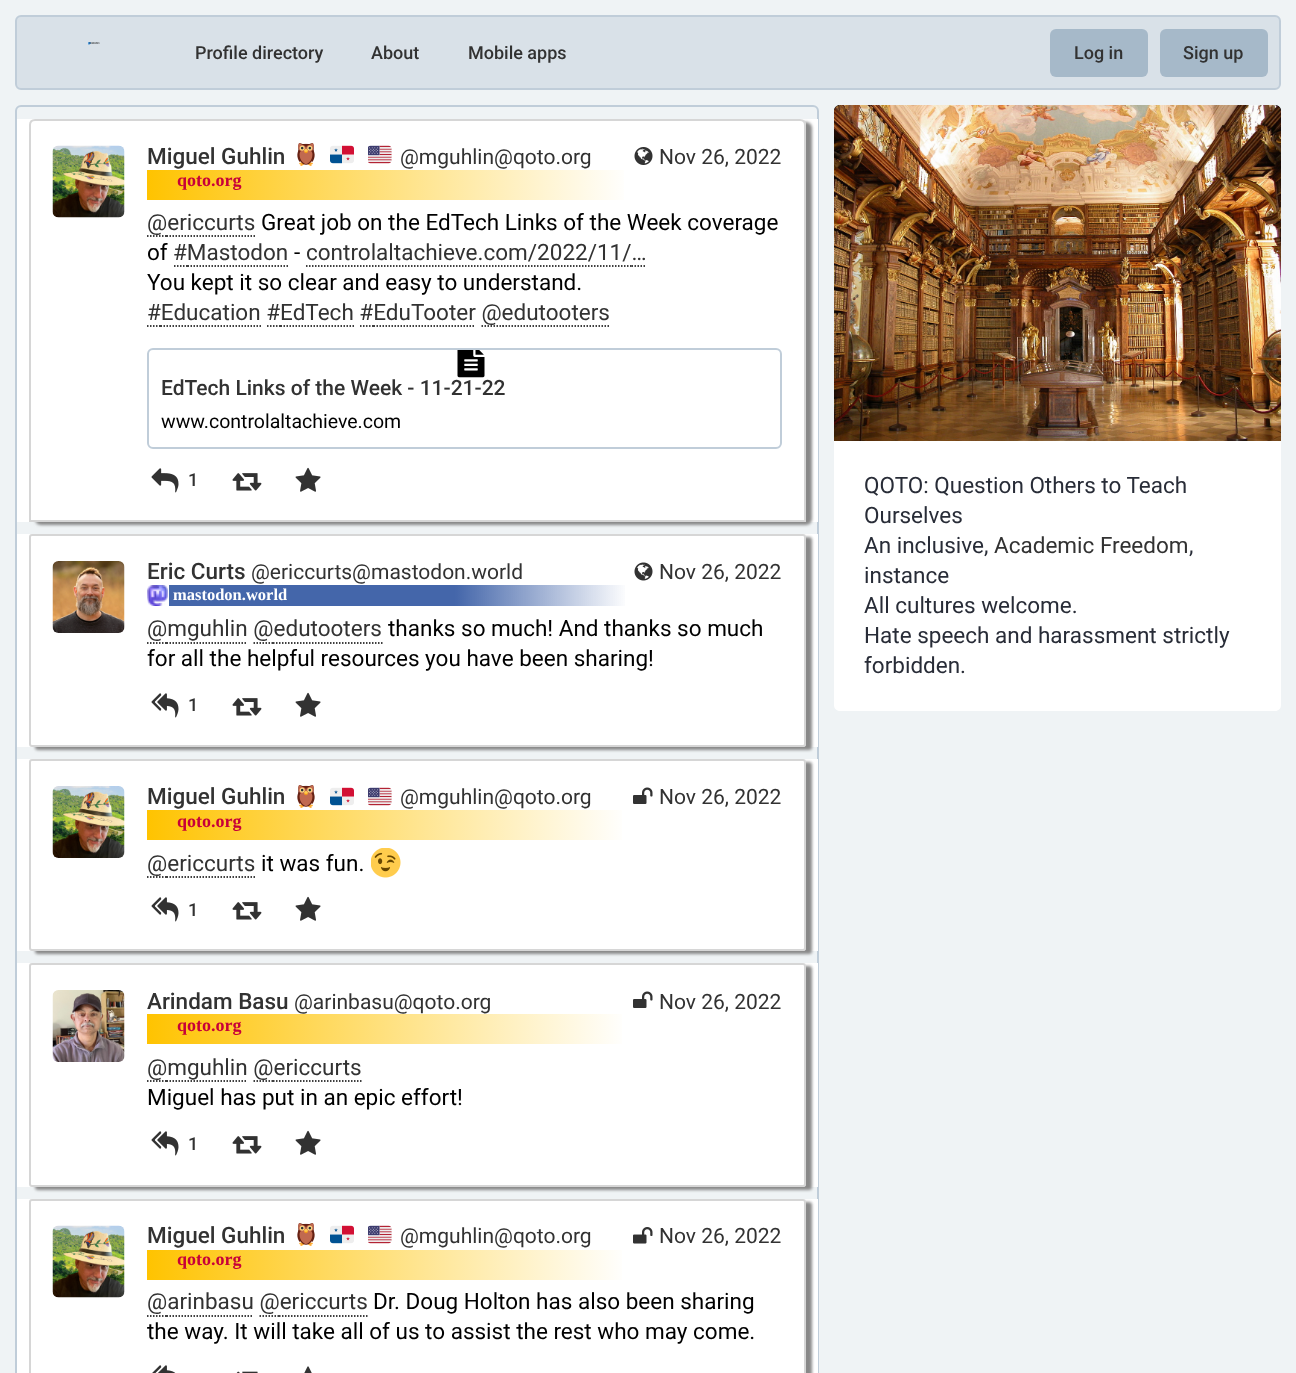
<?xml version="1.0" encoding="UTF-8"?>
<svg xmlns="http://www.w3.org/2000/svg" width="1296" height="1373">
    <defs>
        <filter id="blur1" x="-50%" y="-200%" width="200%" height="500%"><feGaussianBlur stdDeviation="1.5"/></filter>
        <linearGradient id="g1" gradientUnits="userSpaceOnUse" x1="147" y1="185" x2="629" y2="184"><stop offset="0" stop-color="#FFC300"/><stop offset="1" stop-color="#FFFFFF"/></linearGradient>
        <linearGradient id="g2" gradientUnits="userSpaceOnUse" x1="147" y1="825" x2="627" y2="825"><stop offset="0" stop-color="#FFC300"/><stop offset="1" stop-color="#FFFFFF"/></linearGradient>
        <linearGradient id="g3" gradientUnits="userSpaceOnUse" x1="147" y1="1029" x2="627" y2="1029"><stop offset="0" stop-color="#FFC300"/><stop offset="1" stop-color="#FFFFFF"/></linearGradient>
        <linearGradient id="g4" gradientUnits="userSpaceOnUse" x1="147" y1="1265" x2="627" y2="1265"><stop offset="0" stop-color="#FFC300"/><stop offset="1" stop-color="#FFFFFF"/></linearGradient>
    </defs>
    <rect width="100%" height="100%" fill="#EFF3F5"/>
    <rect x="16" y="16" width="1264" height="73" rx="5" fill="#D9E1E8" stroke="#C0CDD9" stroke-width="2"/>
    <image x="88" y="42" width="12" height="3" href="img_01.png"/>
    <text x="195" y="59" font-family="Roboto" font-size="18" font-weight="500" fill="#323232">Profile directory</text>
    <text x="371" y="59" font-family="Roboto" font-size="18" font-weight="500" fill="#323232">About</text>
    <text x="468" y="59" font-family="Roboto" font-size="18" font-weight="500" fill="#323232">Mobile apps</text>
    <rect x="1050" y="29" width="98" height="48" rx="6" fill="#A6B9C9"/>
    <text x="1074" y="59" font-family="Roboto" font-size="18" font-weight="500" fill="#323232">Log in</text>
    <rect x="1160" y="29" width="108" height="48" rx="6" fill="#A6B9C9"/>
    <text x="1183" y="59" font-family="Roboto" font-size="18" font-weight="500" fill="#323232">Sign up</text>
    <rect x="16" y="106" width="802" height="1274" rx="5" fill="none" stroke="#C0CDD9" stroke-width="2"/>
    <rect x="17" y="119" width="801" height="403" fill="#FFFFFF"/>
    <rect x="35" y="122" width="777" height="403" rx="6" fill="#888888" filter="url(#blur1)"/>
    <path d="M 35 119 H 800 C 803.5 119 806 121.5 806 125 V 522 H 29 V 125 C 29 121.5 31.5 119 35 119 Z" fill="#FFFFFF"/>
    <path d="M 35 120 H 800 C 803 120 805 122 805 125 V 521 H 30 V 125 C 30 122 32 120 35 120 Z" fill="none" stroke="#CCCCCC" stroke-opacity="0.8" stroke-width="2"/>
    <image x="52" y="145" width="73" height="73" href="img_02.png"/>
    <text x="147" y="164" font-family="Roboto" font-size="22.5" font-weight="500" fill="#323232">Miguel Guhlin</text>
    <image x="297" y="143" width="18" height="23" href="img_03.png"/>
    <image x="330" y="145" width="24" height="19" href="img_04.png"/>
    <image x="368" y="145" width="24" height="19" href="img_05.png"/>
    <text x="400" y="164" font-family="Roboto" font-size="21" fill="#323232">@mguhlin@qoto.org</text>
    <rect x="147" y="170" width="477" height="30" fill="url(#g1)"/>
    <text x="177" y="186" font-family="Liberation Serif" font-size="18" font-weight="700" fill="#C70039">qoto.org</text>
    <image x="634" y="147" width="19" height="18" href="img_06.png"/>
    <text x="659" y="164" font-family="Roboto" font-size="21" fill="#323232">Nov 26, 2022</text>
    <text x="147" y="230" font-family="Roboto" font-size="22.5" fill="#323232">@ericcurts</text>
    <path d="M 147 236 H 166.5" fill="none" stroke="#000000" stroke-width="1.5" stroke-dasharray="1.5 1.5"/>
    <path d="M 166.5 236 H 255" fill="none" stroke="#000000" stroke-width="1.5" stroke-dasharray="1.5 1.5"/>
    <rect x="167" y="235" width="88" height="2" fill="#FFFFFF"/>
    <path d="M 166.5 236 H 255" fill="none" stroke="#000000" stroke-width="1.5" stroke-dasharray="1.5 1.5"/>
    <text x="261" y="230" font-family="Roboto" font-size="22.5" fill="#000000">Great job on the EdTech Links of the Week coverage</text>
    <text x="147" y="260" font-family="Roboto" font-size="22.5" fill="#000000">of</text>
    <text x="173" y="260" font-family="Roboto" font-size="22.5" fill="#323232">#Mastodon</text>
    <path d="M 174 266 H 187.5" fill="none" stroke="#000000" stroke-width="1.5" stroke-dasharray="1.5 1.5"/>
    <path d="M 187.5 266 H 288" fill="none" stroke="#000000" stroke-width="1.5" stroke-dasharray="1.5 1.5"/>
    <rect x="188" y="265" width="100" height="2" fill="#FFFFFF"/>
    <path d="M 187.5 266 H 288" fill="none" stroke="#000000" stroke-width="1.5" stroke-dasharray="1.5 1.5"/>
    <text x="294" y="260" font-family="Roboto" font-size="22.5" fill="#000000">-</text>
    <text x="306" y="260" font-family="Roboto" font-size="22.5" fill="#323232">controlaltachieve.com/2022/11/…</text>
    <path d="M 306 266 H 631.5" fill="none" stroke="#000000" stroke-width="1.5" stroke-dasharray="1.5 1.5"/>
    <path d="M 631.5 266 H 646.5" fill="none" stroke="#000000" stroke-width="1.5" stroke-dasharray="1.5 1.5"/>
    <text x="147" y="290" font-family="Roboto" font-size="22.5" fill="#000000">You kept it so clear and easy to understand.</text>
    <text x="147" y="320" font-family="Roboto" font-size="22.5" fill="#323232">#Education #EdTech #EduTooter @edutooters</text>
    <path d="M 147 326 H 160.5" fill="none" stroke="#000000" stroke-width="1.5" stroke-dasharray="1.5 1.5"/>
    <path d="M 160.5 326 H 261" fill="none" stroke="#000000" stroke-width="1.5" stroke-dasharray="1.5 1.5"/>
    <rect x="161" y="325" width="100" height="2" fill="#FFFFFF"/>
    <path d="M 160.5 326 H 261" fill="none" stroke="#000000" stroke-width="1.5" stroke-dasharray="1.5 1.5"/>
    <path d="M 267 326 H 280.5" fill="none" stroke="#000000" stroke-width="1.5" stroke-dasharray="1.5 1.5"/>
    <path d="M 280.5 326 H 354" fill="none" stroke="#000000" stroke-width="1.5" stroke-dasharray="1.5 1.5"/>
    <rect x="281" y="325" width="73" height="2" fill="#FFFFFF"/>
    <path d="M 280.5 326 H 354" fill="none" stroke="#000000" stroke-width="1.5" stroke-dasharray="1.5 1.5"/>
    <path d="M 360 326 H 373.5" fill="none" stroke="#000000" stroke-width="1.5" stroke-dasharray="1.5 1.5"/>
    <path d="M 373.5 326 H 475.5" fill="none" stroke="#000000" stroke-width="1.5" stroke-dasharray="1.5 1.5"/>
    <rect x="374" y="325" width="100" height="2" fill="#FFFFFF"/>
    <path d="M 373.5 326 H 475.5" fill="none" stroke="#000000" stroke-width="1.5" stroke-dasharray="1.5 1.5"/>
    <path d="M 481.5 326 H 502.5" fill="none" stroke="#000000" stroke-width="1.5" stroke-dasharray="1.5 1.5"/>
    <path d="M 502.5 326 H 610.5" fill="none" stroke="#000000" stroke-width="1.5" stroke-dasharray="1.5 1.5"/>
    <rect x="503" y="325" width="106" height="2" fill="#FFFFFF"/>
    <path d="M 502.5 326 H 610.5" fill="none" stroke="#000000" stroke-width="1.5" stroke-dasharray="1.5 1.5"/>
    <rect x="148" y="349" width="633" height="99" rx="5" fill="none" stroke="#C0CDD9" stroke-width="2"/>
    <image x="457" y="350" width="28" height="28" href="img_07.png"/>
    <text x="161" y="395" font-family="Roboto" font-size="21" font-weight="500" fill="#323232">EdTech Links of the Week - 11-21-22</text>
    <text x="161" y="428" font-family="Roboto" font-size="19.5" fill="#000000">www.controlaltachieve.com</text>
    <image x="151" y="468" width="28" height="25" href="img_08.png"/>
    <text x="188" y="486" font-family="Roboto" font-size="18" font-weight="500" fill="#323232">1</text>
    <image x="232" y="473" width="30" height="18" href="img_09.png"/>
    <image x="295" y="467" width="26" height="25" href="img_10.png"/>
    <rect x="17" y="534" width="801" height="213" fill="#FFFFFF"/>
    <rect x="35" y="537" width="777" height="213" rx="3" fill="#888888" filter="url(#blur1)"/>
    <rect x="29" y="534" width="777" height="213" rx="3" fill="#FFFFFF"/>
    <rect x="30" y="535" width="775" height="211" rx="2" fill="none" stroke="#CCCCCC" stroke-opacity="0.8" stroke-width="2"/>
    <image x="52" y="561" width="73" height="72" href="img_11.png"/>
    <text x="147" y="579" font-family="Roboto" font-size="22.5" font-weight="500" fill="#323232">Eric Curts</text>
    <text x="251" y="579" font-family="Roboto" font-size="21" fill="#323232">@ericcurts@mastodon.world</text>
    <image x="147" y="585" width="478" height="21" href="img_12.png"/>
    <text x="173" y="600" font-family="Liberation Serif" font-size="16.5" font-weight="700" fill="#FFFFFF">mastodon.world</text>
    <image x="634" y="562" width="19" height="19" href="img_13.png"/>
    <text x="659" y="579" font-family="Roboto" font-size="21" fill="#323232">Nov 26, 2022</text>
    <text x="147" y="636" font-family="Roboto" font-size="22.5" fill="#323232">@mguhlin @edutooters</text>
    <path d="M 147 643 H 166.5" fill="none" stroke="#000000" stroke-width="1.5" stroke-dasharray="1.5 1.5"/>
    <path d="M 166.5 643 H 247.5" fill="none" stroke="#000000" stroke-width="1.5" stroke-dasharray="1.5 1.5"/>
    <rect x="167" y="642" width="79" height="2" fill="#FFFFFF"/>
    <path d="M 166.5 643 H 247.5" fill="none" stroke="#000000" stroke-width="1.5" stroke-dasharray="1.5 1.5"/>
    <text x="388" y="636" font-family="Roboto" font-size="22.5" fill="#000000">thanks so much! And thanks so much</text>
    <path d="M 253.5 643 H 273" fill="none" stroke="#000000" stroke-width="1.5" stroke-dasharray="1.5 1.5"/>
    <path d="M 273 643 H 382.5" fill="none" stroke="#000000" stroke-width="1.5" stroke-dasharray="1.5 1.5"/>
    <text x="147" y="666" font-family="Roboto" font-size="22.5" fill="#000000">for all the helpful resources you have been sharing!</text>
    <image x="151" y="693" width="28" height="25" href="img_14.png"/>
    <text x="188" y="711" font-family="Roboto" font-size="18" font-weight="500" fill="#323232">1</text>
    <image x="232" y="698" width="30" height="18" href="img_09.png"/>
    <image x="295" y="692" width="26" height="25" href="img_10.png"/>
    <rect x="17" y="759" width="801" height="192" fill="#FFFFFF"/>
    <rect x="35" y="762" width="777" height="192" rx="3" fill="#888888" filter="url(#blur1)"/>
    <rect x="29" y="759" width="777" height="192" rx="3" fill="#FFFFFF"/>
    <rect x="30" y="760" width="775" height="190" rx="2" fill="none" stroke="#CCCCCC" stroke-opacity="0.8" stroke-width="2"/>
    <image x="52" y="786" width="73" height="72" href="img_15.png"/>
    <text x="147" y="804" font-family="Roboto" font-size="22.5" font-weight="500" fill="#323232">Miguel Guhlin</text>
    <image x="297" y="785" width="18" height="23" href="img_03.png"/>
    <image x="330" y="787" width="24" height="19" href="img_04.png"/>
    <image x="368" y="787" width="24" height="19" href="img_05.png"/>
    <text x="400" y="804" font-family="Roboto" font-size="21" fill="#323232">@mguhlin@qoto.org</text>
    <rect x="147" y="810" width="475" height="30" fill="url(#g2)"/>
    <text x="177" y="827" font-family="Liberation Serif" font-size="18" font-weight="700" fill="#C70039">qoto.org</text>
    <image x="633" y="787" width="20" height="17" href="img_16.png"/>
    <text x="659" y="804" font-family="Roboto" font-size="21" fill="#323232">Nov 26, 2022</text>
    <text x="147" y="871" font-family="Roboto" font-size="22.5" fill="#323232">@ericcurts</text>
    <path d="M 147 877 H 166.5" fill="none" stroke="#000000" stroke-width="1.5" stroke-dasharray="1.5 1.5"/>
    <path d="M 166.5 877 H 255" fill="none" stroke="#000000" stroke-width="1.5" stroke-dasharray="1.5 1.5"/>
    <rect x="167" y="876" width="88" height="2" fill="#FFFFFF"/>
    <path d="M 166.5 877 H 255" fill="none" stroke="#000000" stroke-width="1.5" stroke-dasharray="1.5 1.5"/>
    <text x="261" y="871" font-family="Roboto" font-size="22.5" fill="#000000">it was fun.</text>
    <image x="371" y="848" width="30" height="30" href="img_17.png"/>
    <image x="151" y="897" width="28" height="25" href="img_14.png"/>
    <text x="188" y="916" font-family="Roboto" font-size="18" font-weight="500" fill="#323232">1</text>
    <image x="232" y="902" width="30" height="18" href="img_09.png"/>
    <image x="295" y="896" width="26" height="25" href="img_10.png"/>
    <rect x="17" y="963" width="801" height="224" fill="#FFFFFF"/>
    <rect x="35" y="966" width="777" height="224" rx="3" fill="#888888" filter="url(#blur1)"/>
    <rect x="29" y="963" width="777" height="224" rx="3" fill="#FFFFFF"/>
    <rect x="30" y="964" width="775" height="222" rx="2" fill="none" stroke="#CCCCCC" stroke-opacity="0.8" stroke-width="2"/>
    <image x="52" y="990" width="73" height="72" href="img_18.png"/>
    <text x="147" y="1009" font-family="Roboto" font-size="22.5" font-weight="500" fill="#323232">Arindam Basu</text>
    <text x="294" y="1009" font-family="Roboto" font-size="21" fill="#323232">@arinbasu@qoto.org</text>
    <rect x="147" y="1014" width="475" height="30" fill="url(#g3)"/>
    <text x="177" y="1031" font-family="Liberation Serif" font-size="18" font-weight="700" fill="#C70039">qoto.org</text>
    <image x="633" y="991" width="20" height="17" href="img_16.png"/>
    <text x="659" y="1009" font-family="Roboto" font-size="21" fill="#323232">Nov 26, 2022</text>
    <text x="147" y="1075" font-family="Roboto" font-size="22.5" fill="#323232">@mguhlin @ericcurts</text>
    <path d="M 147 1081 H 166.5" fill="none" stroke="#000000" stroke-width="1.5" stroke-dasharray="1.5 1.5"/>
    <path d="M 166.5 1081 H 247.5" fill="none" stroke="#000000" stroke-width="1.5" stroke-dasharray="1.5 1.5"/>
    <rect x="167" y="1080" width="79" height="2" fill="#FFFFFF"/>
    <path d="M 166.5 1081 H 247.5" fill="none" stroke="#000000" stroke-width="1.5" stroke-dasharray="1.5 1.5"/>
    <path d="M 253.5 1081 H 273" fill="none" stroke="#000000" stroke-width="1.5" stroke-dasharray="1.5 1.5"/>
    <path d="M 273 1081 H 361.5" fill="none" stroke="#000000" stroke-width="1.5" stroke-dasharray="1.5 1.5"/>
    <text x="147" y="1105" font-family="Roboto" font-size="22.5" fill="#000000">Miguel has put in an epic effort!</text>
    <image x="151" y="1131" width="28" height="25" href="img_14.png"/>
    <text x="188" y="1150" font-family="Roboto" font-size="18" font-weight="500" fill="#323232">1</text>
    <image x="232" y="1136" width="30" height="18" href="img_09.png"/>
    <image x="295" y="1130" width="26" height="25" href="img_10.png"/>
    <rect x="17" y="1199" width="801" height="174" fill="#FFFFFF"/>
    <rect x="35" y="1202" width="777" height="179" rx="3" fill="#888888" filter="url(#blur1)"/>
    <rect x="29" y="1199" width="777" height="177" rx="3" fill="#FFFFFF"/>
    <rect x="30" y="1200" width="775" height="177" rx="2" fill="none" stroke="#CCCCCC" stroke-opacity="0.8" stroke-width="2"/>
    <image x="52" y="1225" width="73" height="73" href="img_19.png"/>
    <text x="147" y="1243" font-family="Roboto" font-size="22.5" font-weight="500" fill="#323232">Miguel Guhlin</text>
    <image x="297" y="1223" width="18" height="23" href="img_03.png"/>
    <image x="330" y="1225" width="24" height="19" href="img_04.png"/>
    <image x="368" y="1225" width="24" height="19" href="img_05.png"/>
    <text x="400" y="1243" font-family="Roboto" font-size="21" fill="#323232">@mguhlin@qoto.org</text>
    <rect x="147" y="1250" width="475" height="30" fill="url(#g4)"/>
    <text x="177" y="1265" font-family="Liberation Serif" font-size="18" font-weight="700" fill="#C70039">qoto.org</text>
    <image x="633" y="1227" width="20" height="17" href="img_20.png"/>
    <text x="659" y="1243" font-family="Roboto" font-size="21" fill="#323232">Nov 26, 2022</text>
    <text x="147" y="1309" font-family="Roboto" font-size="22.5" fill="#323232">@arinbasu @ericcurts</text>
    <path d="M 147 1316 H 166.5" fill="none" stroke="#000000" stroke-width="1.5" stroke-dasharray="1.5 1.5"/>
    <path d="M 166.5 1316 H 253.5" fill="none" stroke="#000000" stroke-width="1.5" stroke-dasharray="1.5 1.5"/>
    <rect x="167" y="1315" width="85" height="2" fill="#FFFFFF"/>
    <path d="M 166.5 1316 H 253.5" fill="none" stroke="#000000" stroke-width="1.5" stroke-dasharray="1.5 1.5"/>
    <text x="373" y="1309" font-family="Roboto" font-size="22.5" fill="#000000">Dr. Doug Holton has also been sharing</text>
    <path d="M 259.5 1316 H 279" fill="none" stroke="#000000" stroke-width="1.5" stroke-dasharray="1.5 1.5"/>
    <path d="M 279 1316 H 367.5" fill="none" stroke="#000000" stroke-width="1.5" stroke-dasharray="1.5 1.5"/>
    <text x="147" y="1339" font-family="Roboto" font-size="22.5" fill="#000000">the way. It will take all of us to assist the rest who may come.</text>
    <image x="152" y="1365" width="24" height="8" href="img_21.png"/>
    <image x="236" y="1371" width="22" height="2" href="img_22.png"/>
    <image x="304" y="1366" width="8" height="7" href="img_23.png"/>
    <path d="M 840 105 H 1275 C 1278.5 105 1281 107.5 1281 111 V 441 H 834 V 111 C 834 107.5 836.5 105 840 105 Z" fill="#000000"/>
    <image x="834" y="105" width="447" height="336" href="img_24.png"/>
    <path d="M 834 441 H 1281 V 705 C 1281 708.5 1278.5 711 1275 711 H 840 C 836.5 711 834 708.5 834 705 Z" fill="#FFFFFF"/>
    <text font-family="Roboto" font-size="22.5" fill="#282C37">
        <tspan x="864" y="493">QOTO: Question Others to Teach</tspan>
        <tspan x="864" y="523">Ourselves</tspan>
        <tspan x="864" y="553">An inclusive,</tspan>
    </text>
    <text x="994" y="553" font-family="Roboto" font-size="22.5" fill="#323232">Academic Freedom</text>
    <text x="1189" y="553" font-family="Roboto" font-size="22.5" fill="#282C37">,</text>
    <text font-family="Roboto" font-size="22.5" fill="#282C37">
        <tspan x="864" y="583">instance</tspan>
        <tspan x="864" y="613">All cultures welcome.</tspan>
        <tspan x="864" y="643">Hate speech and harassment strictly</tspan>
        <tspan x="864" y="673">forbidden.</tspan>
    </text>
</svg>
